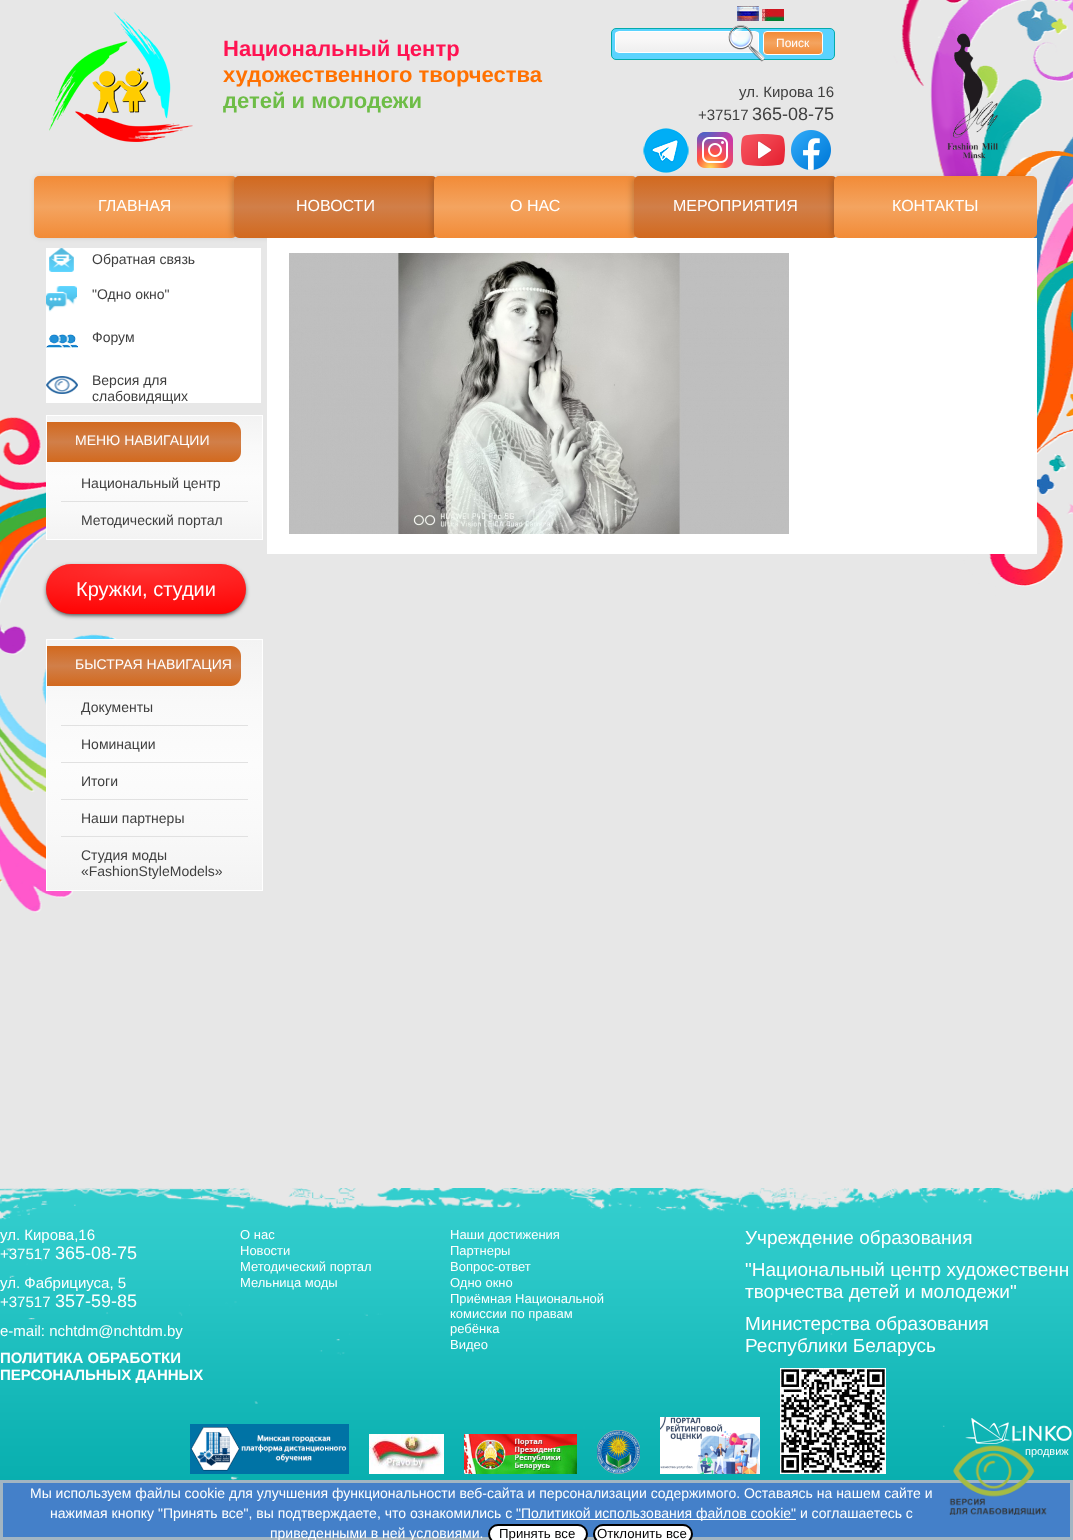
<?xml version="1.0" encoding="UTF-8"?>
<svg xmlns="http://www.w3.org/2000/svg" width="1073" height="1540">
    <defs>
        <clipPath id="clip1"><rect x="615" y="31" width="144" height="22" rx="4"/></clipPath>
        <linearGradient id="g1" gradientUnits="userSpaceOnUse" x1="687" y1="32" x2="687" y2="52"><stop offset="0.32" stop-color="#F9F8F8"/><stop offset="0.99" stop-color="#EFEFEF"/></linearGradient>
        <clipPath id="clip2"><rect x="763" y="31" width="60" height="24" rx="4"/></clipPath>
        <linearGradient id="g2" gradientUnits="userSpaceOnUse" x1="793" y1="32" x2="793" y2="54"><stop offset="0" stop-color="#F28B37"/><stop offset="0.5" stop-color="#F4A460"/><stop offset="1" stop-color="#F28B37"/></linearGradient>
        <filter id="blur1" x="-50%" y="-200%" width="200%" height="500%"><feGaussianBlur stdDeviation="3"/></filter>
        <linearGradient id="g3" gradientUnits="userSpaceOnUse" x1="136" y1="176" x2="136" y2="238"><stop offset="0" stop-color="#F28B37"/><stop offset="0.5" stop-color="#F4A460"/><stop offset="1" stop-color="#F28B37"/></linearGradient>
        <linearGradient id="g4" gradientUnits="userSpaceOnUse" x1="336" y1="176" x2="336" y2="238"><stop offset="0" stop-color="#D2691E"/><stop offset="0.5" stop-color="#D17F49"/><stop offset="1" stop-color="#D2691E"/></linearGradient>
        <linearGradient id="g5" gradientUnits="userSpaceOnUse" x1="536" y1="176" x2="536" y2="238"><stop offset="0" stop-color="#F28B37"/><stop offset="0.5" stop-color="#F4A460"/><stop offset="1" stop-color="#F28B37"/></linearGradient>
        <linearGradient id="g6" gradientUnits="userSpaceOnUse" x1="736" y1="176" x2="736" y2="238"><stop offset="0" stop-color="#D2691E"/><stop offset="0.5" stop-color="#D17F49"/><stop offset="1" stop-color="#D2691E"/></linearGradient>
        <linearGradient id="g7" gradientUnits="userSpaceOnUse" x1="936" y1="176" x2="936" y2="238"><stop offset="0" stop-color="#F28B37"/><stop offset="0.5" stop-color="#F4A460"/><stop offset="1" stop-color="#F28B37"/></linearGradient>
        <linearGradient id="g8" gradientUnits="userSpaceOnUse" x1="155" y1="416" x2="155" y2="539"><stop offset="0" stop-color="#F3F3F3"/><stop offset="0.25" stop-color="#F9F9F9"/><stop offset="0.5" stop-color="#FCFCFC"/><stop offset="0.75" stop-color="#F9F9F9"/><stop offset="1" stop-color="#F3F3F3"/></linearGradient>
        <linearGradient id="g9" gradientUnits="userSpaceOnUse" x1="144" y1="422" x2="144" y2="462"><stop offset="0" stop-color="#D2691E"/><stop offset="0.5" stop-color="#D17F49"/><stop offset="1" stop-color="#D2691E"/></linearGradient>
        <filter id="blur2" x="-50%" y="-200%" width="200%" height="500%"><feGaussianBlur stdDeviation="2.5"/></filter>
        <radialGradient id="g10" gradientUnits="userSpaceOnUse" cx="0" cy="0" r="1" gradientTransform="matrix(300 0 0 50 146 569)"><stop offset="0" stop-color="#FFFFFF" stop-opacity="0.2"/><stop offset="1" stop-color="#FFFFFF" stop-opacity="0"/></radialGradient>
        <linearGradient id="g11" gradientUnits="userSpaceOnUse" x1="154" y1="640" x2="155" y2="890"><stop offset="0" stop-color="#F3F3F3"/><stop offset="0.25" stop-color="#F9F9F9"/><stop offset="0.5" stop-color="#FCFCFC"/><stop offset="0.75" stop-color="#F9F9F9"/><stop offset="1" stop-color="#F3F3F3"/></linearGradient>
        <linearGradient id="g12" gradientUnits="userSpaceOnUse" x1="144" y1="646" x2="144" y2="686"><stop offset="0" stop-color="#D2691E"/><stop offset="0.5" stop-color="#D17F49"/><stop offset="1" stop-color="#D2691E"/></linearGradient>
    </defs>
    <rect width="100%" height="100%" fill="#E7E7E7"/>
    <image x="0" y="0" width="1073" height="913" href="img_01.png"/>
    <image x="49" y="12" width="144" height="130" href="img_02.png"/>
    <image x="737" y="6" width="22" height="15" href="img_03.png"/>
    <image x="762" y="9" width="22" height="12" href="img_04.png"/>
    <image x="947" y="33" width="51" height="126" href="img_05.png"/>
    <text x="223" y="56" font-family="Liberation Sans" font-size="22" font-weight="700" fill="#FF1352">Национальный центр</text>
    <text x="223" y="82" font-family="Liberation Sans" font-size="22" font-weight="700" fill="#FF7101">художественного творчества</text>
    <text x="223" y="108" font-family="Liberation Sans" font-size="22" font-weight="700" fill="#6EBD47">детей и молодежи</text>
    <rect x="611.5" y="28.5" width="223" height="31" rx="4.5" fill="#5AD3FE" stroke="#03ABAB"/>
    <g clip-path="url(#clip1)">
        <rect x="615" y="32" width="144" height="20" fill="url(#g1)"/>
    </g>
    <rect x="615.5" y="31.5" width="143" height="21" rx="3.5" fill="none" stroke="#FFFFFF"/>
    <g clip-path="url(#clip2)">
        <rect x="763" y="32" width="60" height="22" fill="url(#g2)"/>
    </g>
    <rect x="763.5" y="31.5" width="59" height="23" rx="3.5" fill="none" stroke="#FFFFFF"/>
    <image x="728" y="25" width="37" height="37" href="img_06.png"/>
    <text x="776" y="47" font-family="Liberation Sans" font-size="12" fill="#FFFFFF">Поиск</text>
    <text x="739" y="97" font-family="Liberation Sans" font-size="15" fill="#3F3F3F">ул. Кирова 16</text>
    <text x="698" y="120" font-family="Liberation Sans" font-size="15" fill="#3F3F3F">+37517</text>
    <text x="752" y="120" font-family="Liberation Sans" font-size="18" fill="#3F3F3F">365-08-75</text>
    <image x="643" y="128" width="46" height="45" href="img_07.png"/>
    <image x="697" y="132" width="36" height="36" href="img_08.png"/>
    <image x="741" y="134" width="44" height="32" href="img_09.png"/>
    <image x="791" y="130" width="40" height="40" href="img_10.png"/>
    <rect x="36" y="178" width="199" height="58" rx="3" fill="#000000" fill-opacity="0.2" filter="url(#blur1)"/>
    <rect x="34" y="176" width="203" height="62" rx="5" fill="url(#g3)"/>
    <text x="98" y="211" font-family="Liberation Sans" font-size="16" fill="#FFFFFF">ГЛАВНАЯ</text>
    <rect x="232" y="178" width="199" height="58" rx="3" fill="#000000" fill-opacity="0.2" filter="url(#blur1)"/>
    <rect x="234" y="176" width="203" height="62" rx="5" fill="url(#g4)"/>
    <text x="296" y="211" font-family="Liberation Sans" font-size="16" fill="#FFFFFF">НОВОСТИ</text>
    <rect x="432" y="178" width="199" height="58" rx="3" fill="#000000" fill-opacity="0.2" filter="url(#blur1)"/>
    <rect x="434" y="176" width="203" height="62" rx="5" fill="url(#g5)"/>
    <text x="510" y="211" font-family="Liberation Sans" font-size="16" fill="#FFFFFF">О НАС</text>
    <rect x="632" y="178" width="199" height="58" rx="3" fill="#000000" fill-opacity="0.2" filter="url(#blur1)"/>
    <rect x="634" y="176" width="203" height="62" rx="5" fill="url(#g6)"/>
    <text x="673" y="211" font-family="Liberation Sans" font-size="16" fill="#FFFFFF">МЕРОПРИЯТИЯ</text>
    <rect x="832" y="178" width="199" height="58" rx="3" fill="#000000" fill-opacity="0.2" filter="url(#blur1)"/>
    <rect x="834" y="176" width="203" height="62" rx="5" fill="url(#g7)"/>
    <text x="892" y="211" font-family="Liberation Sans" font-size="16" fill="#FFFFFF">КОНТАКТЫ</text>
    <rect x="46" y="248" width="215" height="155" fill="#FFFFFF"/>
    <image x="49" y="248" width="25" height="24" href="img_11.png"/>
    <text x="92" y="264" font-family="Liberation Sans" font-size="14" fill="#3F3F3F">Обратная связь</text>
    <image x="46" y="286" width="31" height="26" href="img_12.png"/>
    <text x="92" y="299" font-family="Liberation Sans" font-size="14" fill="#3F3F3F">"Одно окно"</text>
    <image x="46" y="334" width="32" height="14" href="img_13.png"/>
    <text x="92" y="342" font-family="Liberation Sans" font-size="14" fill="#3F3F3F">Форум</text>
    <image x="46" y="376" width="32" height="18" href="img_14.png"/>
    <text font-family="Liberation Sans" font-size="14" fill="#3F3F3F">
        <tspan x="92" y="385">Версия для</tspan>
        <tspan x="92" y="401">слабовидящих</tspan>
    </text>
    <rect x="47" y="416" width="215" height="123" fill="url(#g8)"/>
    <rect x="46.5" y="415.5" width="216" height="124" fill="none" stroke="#FFFFFF"/>
    <path d="M 47 422 H 231 C 236.5 422 241 426.5 241 432 V 452 C 241 457.5 236.5 462 231 462 H 47 Z" fill="url(#g9)"/>
    <text x="75" y="445" font-family="Liberation Sans" font-size="14" fill="#FFFFFF">МЕНЮ НАВИГАЦИИ</text>
    <rect x="61" y="501" width="187" height="1" fill="#E1E1E1"/>
    <text x="81" y="488" font-family="Liberation Sans" font-size="14" fill="#3F3F3F">Национальный центр</text>
    <text x="81" y="525" font-family="Liberation Sans" font-size="14" fill="#3F3F3F">Методический портал</text>
    <rect x="47" y="567" width="198" height="48" rx="24" fill="#000000" fill-opacity="0.8" filter="url(#blur2)"/>
    <rect x="46" y="564" width="200" height="50" rx="25" fill="#FF0000"/>
    <rect x="46" y="564" width="200" height="50" rx="25" fill="url(#g10)"/>
    <text x="76" y="596" font-family="Liberation Sans" font-size="20" fill="#FFFFFF">Кружки, студии</text>
    <rect x="47" y="640" width="215" height="250" fill="url(#g11)"/>
    <rect x="46.5" y="639.5" width="216" height="251" fill="none" stroke="#FFFFFF"/>
    <path d="M 47 646 H 231 C 236.5 646 241 650.5 241 656 V 676 C 241 681.5 236.5 686 231 686 H 47 Z" fill="url(#g12)"/>
    <text x="75" y="669" font-family="Liberation Sans" font-size="14" fill="#FFFFFF">БЫСТРАЯ НАВИГАЦИЯ</text>
    <rect x="61" y="725" width="187" height="1" fill="#E1E1E1"/>
    <text x="81" y="712" font-family="Liberation Sans" font-size="14" fill="#3F3F3F">Документы</text>
    <rect x="61" y="762" width="187" height="1" fill="#E1E1E1"/>
    <text x="81" y="749" font-family="Liberation Sans" font-size="14" fill="#3F3F3F">Номинации</text>
    <rect x="61" y="799" width="187" height="1" fill="#E1E1E1"/>
    <text x="81" y="786" font-family="Liberation Sans" font-size="14" fill="#3F3F3F">Итоги</text>
    <rect x="61" y="836" width="187" height="1" fill="#E1E1E1"/>
    <text x="81" y="823" font-family="Liberation Sans" font-size="14" fill="#3F3F3F">Наши партнеры</text>
    <text font-family="Liberation Sans" font-size="14" fill="#3F3F3F">
        <tspan x="81" y="860">Студия моды</tspan>
        <tspan x="81" y="876">«FashionStyleModels»</tspan>
    </text>
    <rect x="267" y="238" width="770" height="316" fill="#FFFFFF"/>
    <image x="289" y="253" width="500" height="281" href="img_15.png"/>
    <image x="0" y="1188" width="1073" height="292" href="img_16.png"/>
    <text font-family="Liberation Sans" font-size="15" fill="#FFFFFF">
        <tspan x="0" y="1240">ул. Кирова,16</tspan>
        <tspan x="0" y="1259">+37517</tspan>
    </text>
    <text x="55" y="1259" font-family="Liberation Sans" font-size="18" fill="#FFFFFF">365-08-75</text>
    <text font-family="Liberation Sans" font-size="15" fill="#FFFFFF">
        <tspan x="0" y="1288">ул. Фабрициуса, 5</tspan>
        <tspan x="0" y="1307">+37517</tspan>
    </text>
    <text x="55" y="1307" font-family="Liberation Sans" font-size="18" fill="#FFFFFF">357-59-85</text>
    <text x="0" y="1336" font-family="Liberation Sans" font-size="15" fill="#FFFFFF">e-mail: nchtdm@nchtdm.by</text>
    <text font-family="Liberation Sans" font-size="15" font-weight="700" fill="#FFFFFF">
        <tspan x="0" y="1363">ПОЛИТИКА ОБРАБОТКИ</tspan>
        <tspan x="0" y="1380">ПЕРСОНАЛЬНЫХ ДАННЫХ</tspan>
    </text>
    <text font-family="Liberation Sans" font-size="13" fill="#FFFFFF">
        <tspan x="240" y="1239">О нас</tspan>
        <tspan x="240" y="1255">Новости</tspan>
        <tspan x="240" y="1271">Методический портал</tspan>
        <tspan x="240" y="1287">Мельница моды</tspan>
    </text>
    <text font-family="Liberation Sans" font-size="13" fill="#FFFFFF">
        <tspan x="450" y="1239">Наши достижения</tspan>
        <tspan x="450" y="1255">Партнеры</tspan>
        <tspan x="450" y="1271">Вопрос-ответ</tspan>
        <tspan x="450" y="1287">Одно окно</tspan>
        <tspan x="450" y="1303">Приёмная Национальной</tspan>
        <tspan x="450" y="1318">комиссии по правам</tspan>
        <tspan x="450" y="1333">ребёнка</tspan>
        <tspan x="450" y="1349">Видео</tspan>
    </text>
    <text font-family="Liberation Sans" font-size="19" fill="#FFFFFF">
        <tspan x="745" y="1244">Учреждение образования</tspan>
        <tspan x="745" y="1276">"Национальный центр художественн</tspan>
        <tspan x="745" y="1298">творчества детей и молодежи"</tspan>
        <tspan x="745" y="1330">Министерства образования</tspan>
        <tspan x="745" y="1352">Республики Беларусь</tspan>
    </text>
    <image x="190" y="1424" width="159" height="50" href="img_17.png"/>
    <image x="369" y="1434" width="75" height="40" href="img_18.png"/>
    <image x="464" y="1434" width="113" height="40" href="img_19.png"/>
    <image x="597" y="1430" width="43" height="44" href="img_20.png"/>
    <image x="660" y="1417" width="100" height="57" href="img_21.png"/>
    <image x="780" y="1368" width="106" height="106" href="img_22.png"/>
    <image x="965" y="1418" width="107" height="26" href="img_23.png"/>
    <text x="1025" y="1455" font-family="Liberation Sans" font-size="11" fill="#FFFFFF">продвиж</text>
    <rect x="1.5" y="1481.5" width="1070" height="57" fill="#4480C9" stroke="#A2B5C2" stroke-width="3"/>
    <text x="30" y="1498" font-family="Liberation Sans" font-size="14" fill="#FFFFFF">Мы используем файлы cookie для улучшения функциональности веб-сайта и персонализации содержимого. Оставаясь на нашем сайте и</text>
    <text x="50" y="1518" font-family="Liberation Sans" font-size="14" fill="#FFFFFF">нажимая кнопку "Принять все", вы подтверждаете, что ознакомились с</text>
    <rect x="516" y="1519" width="280" height="1" fill="#FFFFFF"/>
    <text x="516" y="1518" font-family="Liberation Sans" font-size="14" fill="#FFFFFF">"Политикой использования файлов cookie" и соглашаетесь с</text>
    <text x="270" y="1538" font-family="Liberation Sans" font-size="14" fill="#FFFFFF">приведенными в ней условиями.</text>
    <rect x="489" y="1525" width="98" height="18" rx="9" fill="#FEFFFF" stroke="#000000" stroke-width="2"/>
    <text x="499" y="1538" font-family="Liberation Sans" font-size="13.25" fill="#000000">Принять все</text>
    <rect x="594" y="1525" width="98" height="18" rx="9" fill="#FEFFFF" stroke="#000000" stroke-width="2"/>
    <text x="597" y="1538" font-family="Liberation Sans" font-size="13.25" fill="#000000">Отклонить все</text>
    <image x="949" y="1445" width="98" height="70" href="img_24.png"/>
</svg>
